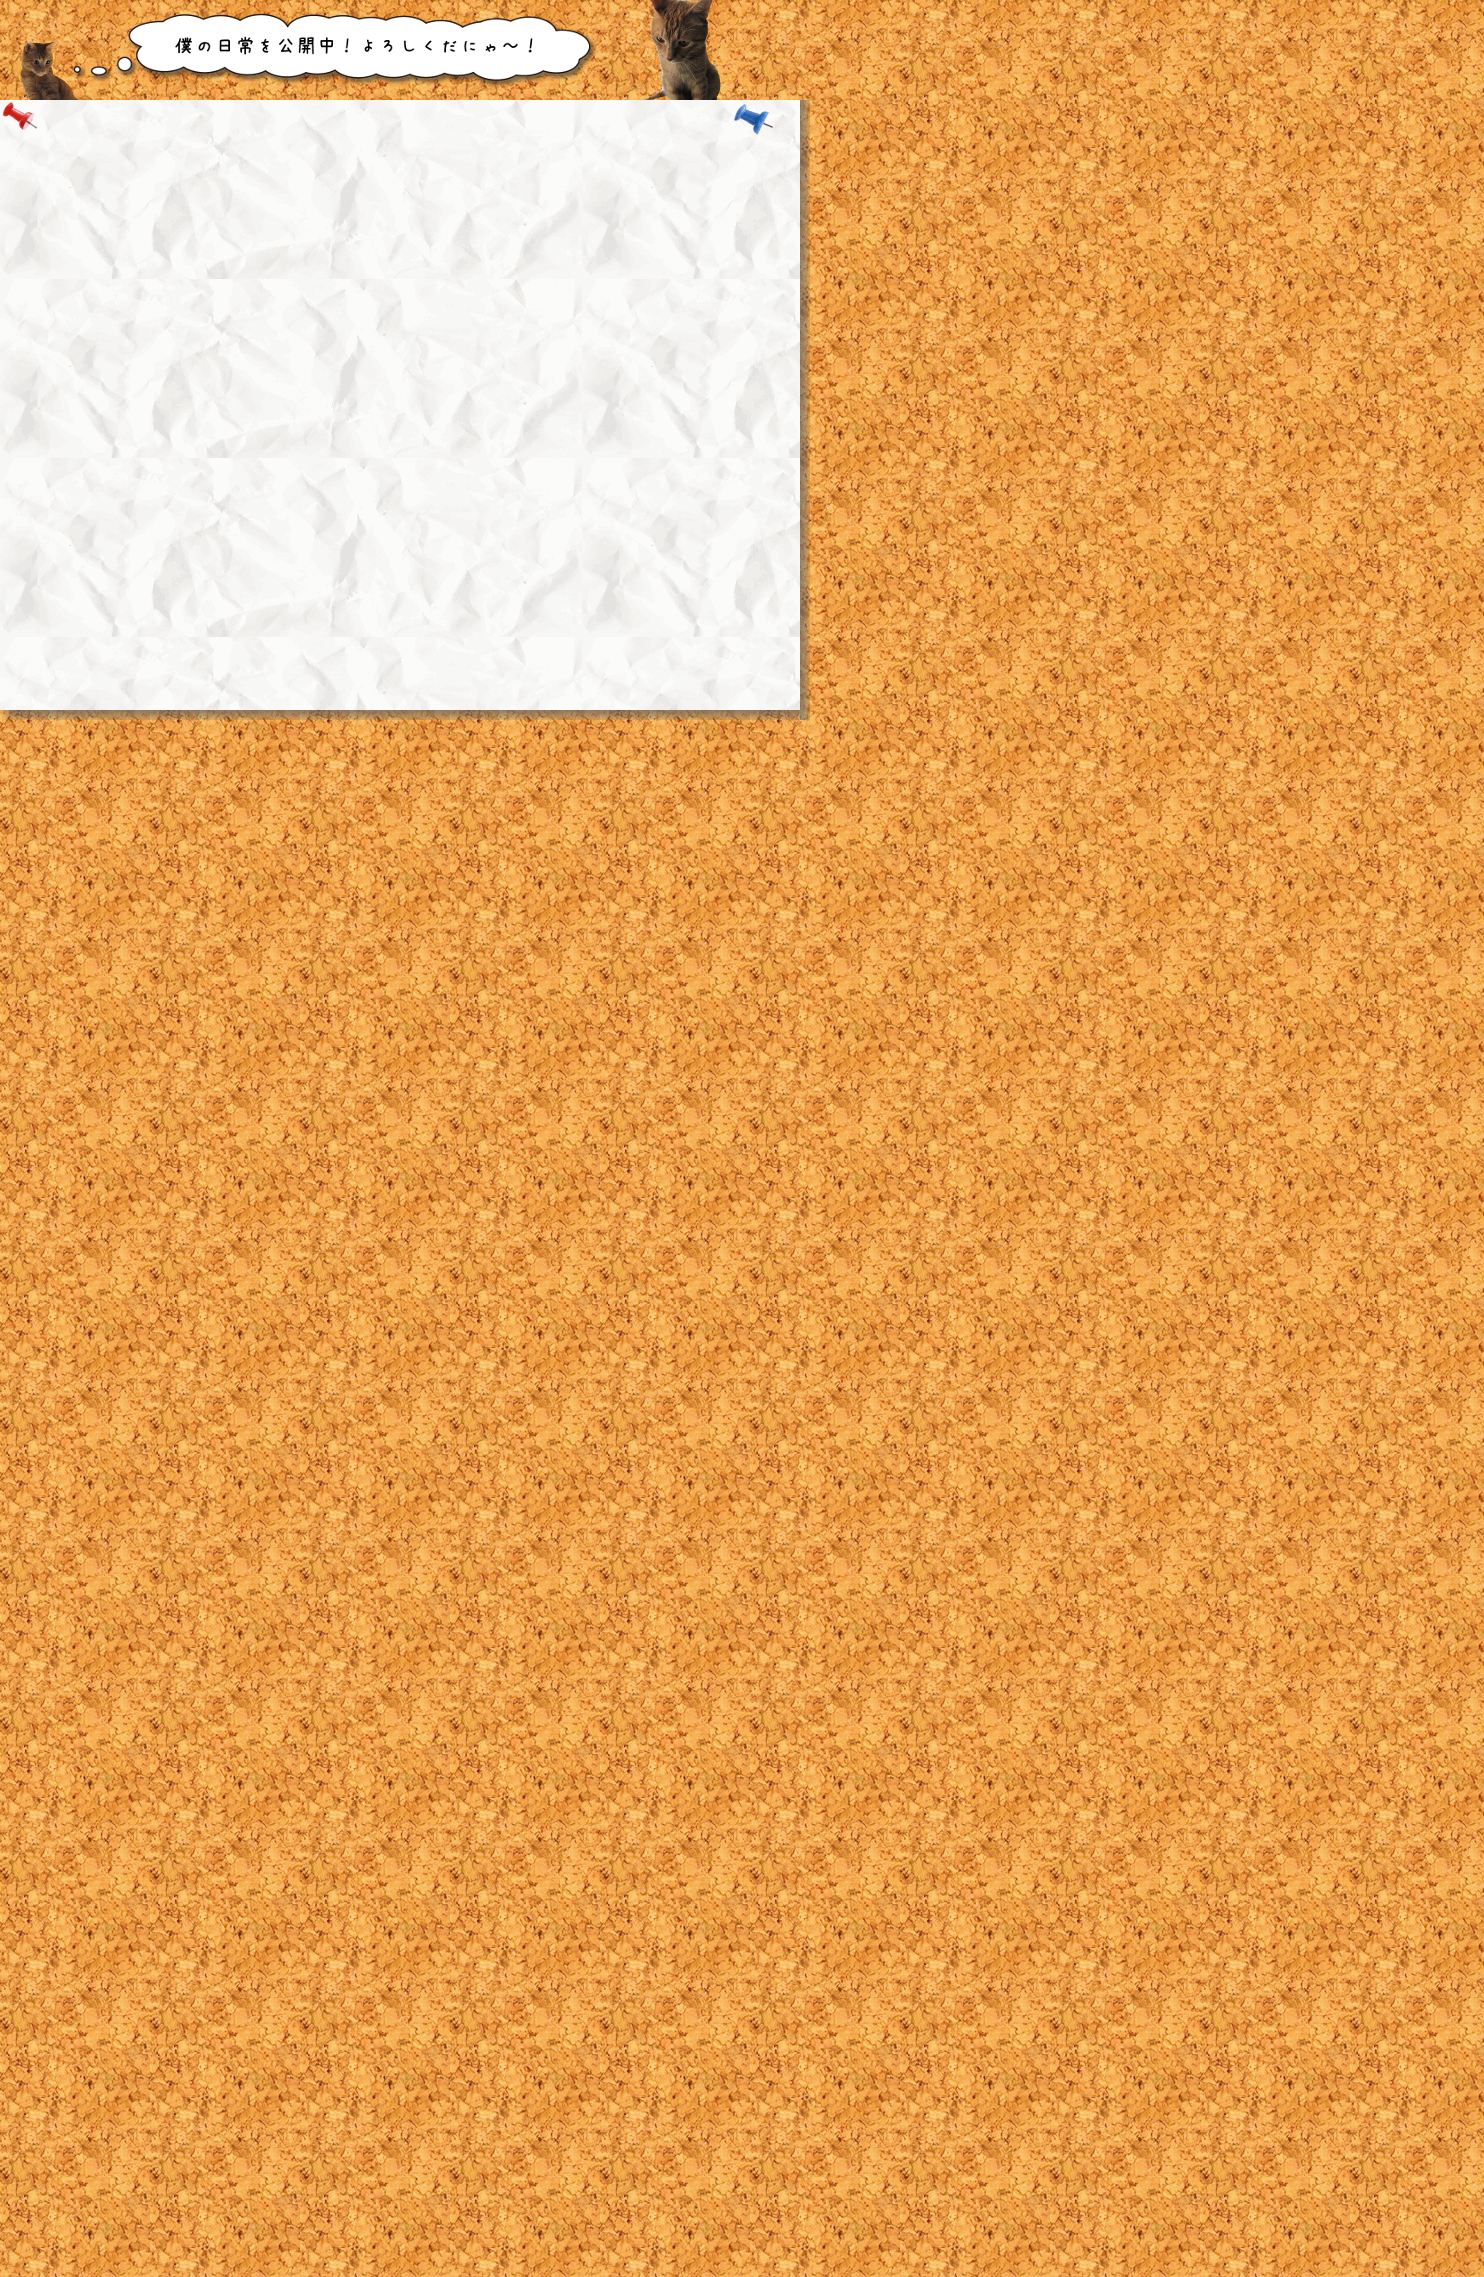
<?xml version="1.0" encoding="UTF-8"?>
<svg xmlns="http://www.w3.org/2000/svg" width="1484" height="2277">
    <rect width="100%" height="100%" fill="#FFFFFF"/>
    <image x="0" y="0" width="1484" height="2277" href="img_01.png"/>
    <image x="20" y="41" width="59" height="59" href="img_02.png"/>
    <image x="73" y="13" width="524" height="75" href="img_03.png"/>
    <image x="644" y="0" width="77" height="100" href="img_04.png"/>
    <image x="0" y="100" width="800" height="610" href="img_08.png"/>
    <image x="2" y="101" width="35" height="30" href="img_05.png"/>
    <image x="734" y="104" width="39" height="31" href="img_06.png"/>
    <image x="800" y="100" width="10" height="620" href="img_07.png"/>
    <image x="0" y="710" width="800" height="10" href="img_09.png"/>
</svg>
